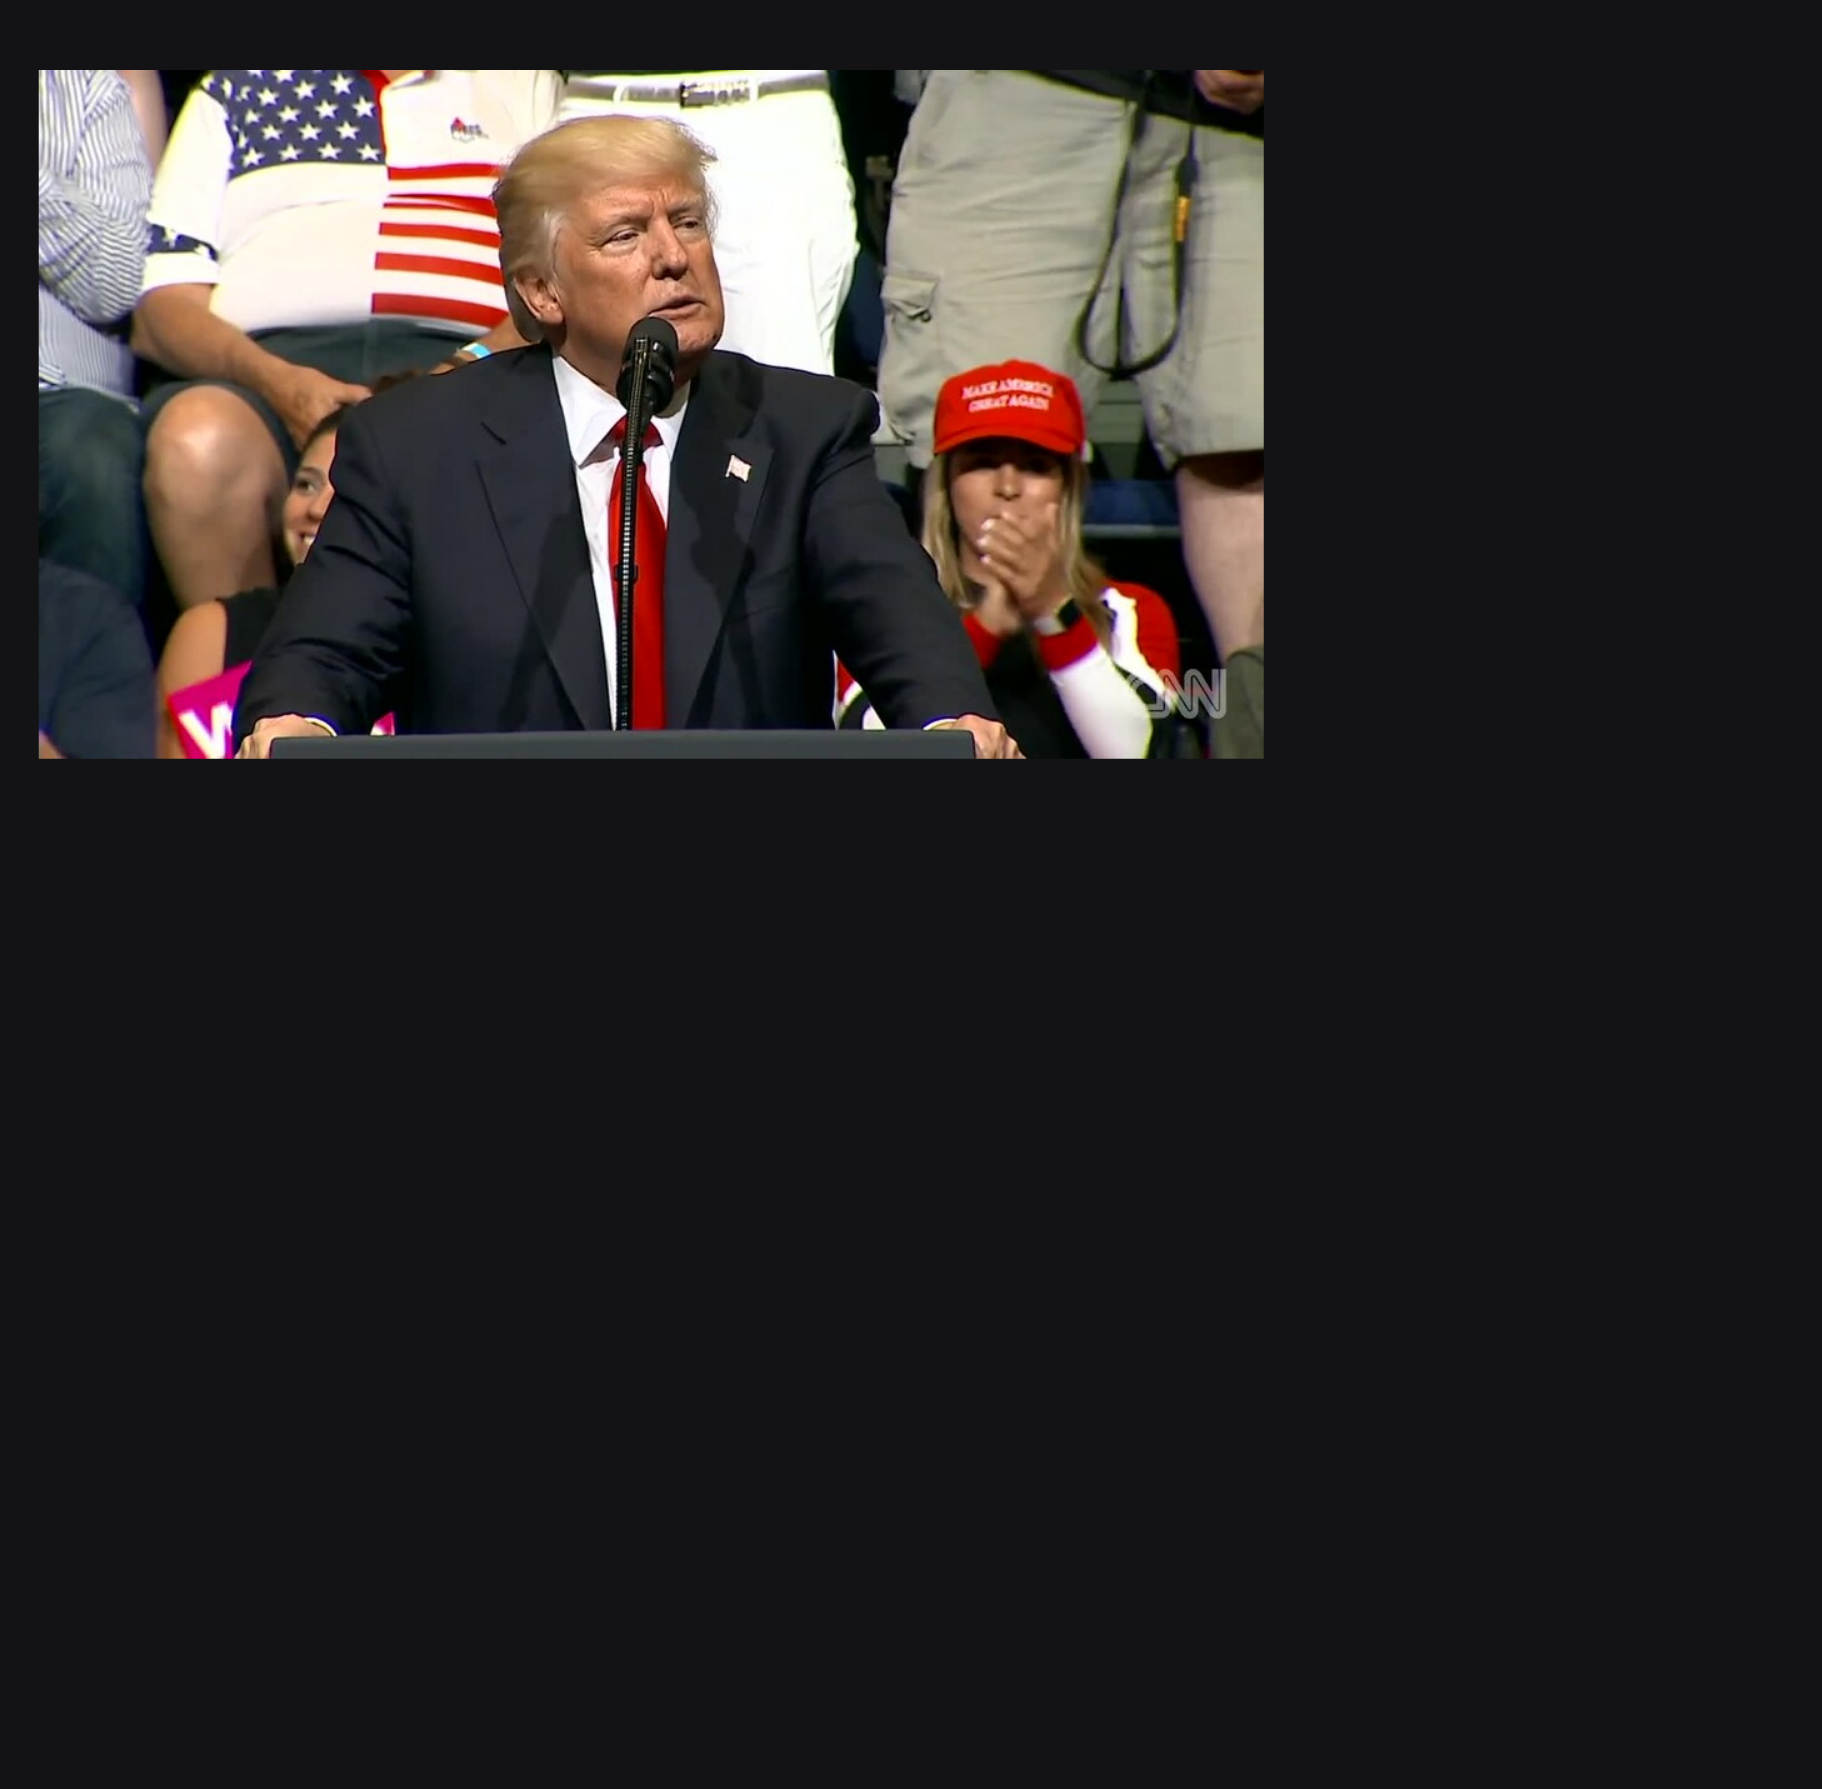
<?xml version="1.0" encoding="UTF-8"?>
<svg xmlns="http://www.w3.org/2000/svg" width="1822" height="1789">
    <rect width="100%" height="100%" fill="#131315"/>
    <image x="38" y="70" width="1226" height="689" href="img_01.png"/>
</svg>
